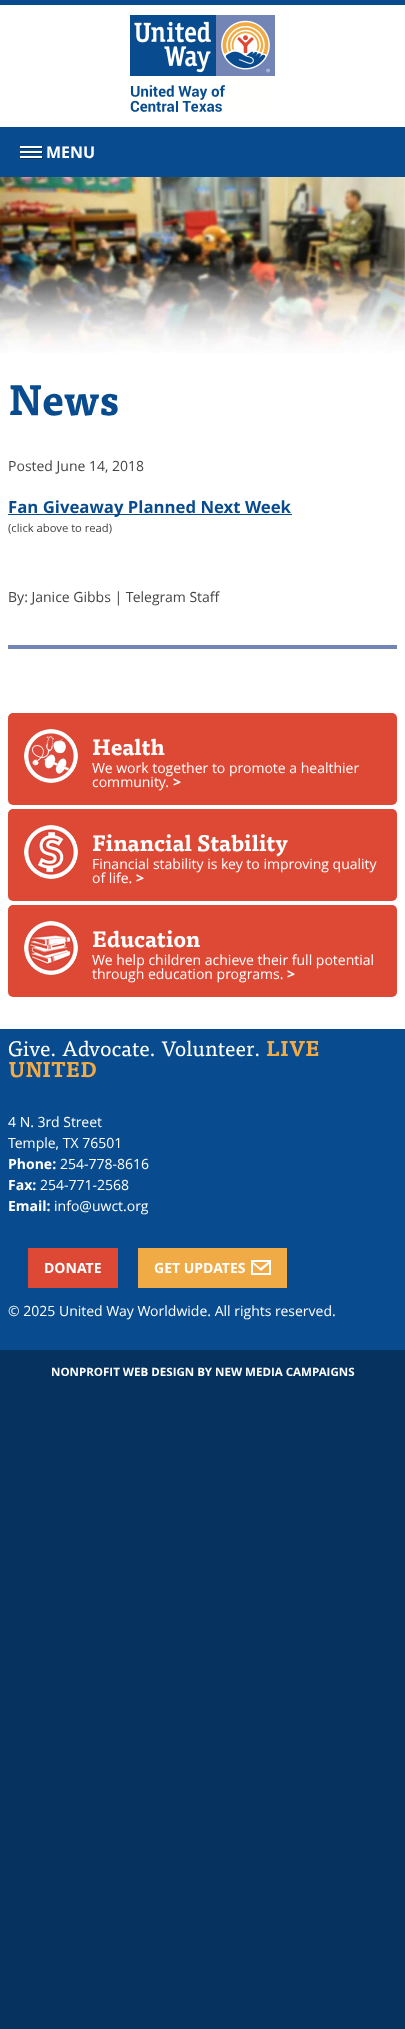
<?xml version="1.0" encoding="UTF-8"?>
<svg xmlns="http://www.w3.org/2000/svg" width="405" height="2029">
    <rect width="100%" height="100%" fill="#05325F"/>
    <rect x="0" y="0" width="405" height="5" fill="#084B8F"/>
    <rect x="0" y="5" width="405" height="1024" fill="#FFFFFF"/>
    <image x="130" y="15" width="145" height="97" href="img_01.png"/>
    <rect x="0" y="127" width="405" height="50" fill="#084B8F"/>
    <path d="M 21 148 V 149 H 43 V 147 H 42 V 148 Z" fill="#05325F"/>
    <rect x="20" y="146" width="22" height="2" fill="#FFFFFF"/>
    <path d="M 21 153 V 154 H 43 V 152 H 42 V 153 Z" fill="#05325F"/>
    <rect x="20" y="151" width="22" height="2" fill="#FFFFFF"/>
    <path d="M 21 158 V 159 H 43 V 157 H 42 V 158 Z" fill="#05325F"/>
    <rect x="20" y="156" width="22" height="2" fill="#FFFFFF"/>
    <text x="46" y="158" font-family="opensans" font-size="16" font-weight="700" fill="#FFFFFF">MENU</text>
    <image x="0" y="177" width="405" height="176" href="img_02.png"/>
    <text x="8" y="415" font-family="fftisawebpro" font-size="42" font-weight="700" fill="#084B8F">News</text>
    <text x="8" y="471" font-family="opensans" font-size="14" fill="#444444">Posted June 14, 2018</text>
    <rect x="8" y="514" width="284" height="1" fill="#084B8F"/>
    <text x="8" y="513" font-family="opensans" font-size="16.75" font-weight="700" fill="#084B8F">Fan Giveaway Planned Next Week</text>
    <text x="8" y="532" font-family="opensans" font-size="11.25" fill="#444444">(click above to read)</text>
    <text x="8" y="602" font-family="opensans" font-size="14" fill="#444444">By: Janice Gibbs | Telegram Staff</text>
    <rect x="8" y="645" width="389" height="4" fill="#7285B4"/>
    <rect x="8" y="713" width="389" height="92" rx="5" fill="#DD4935"/>
    <image x="24" y="729" width="54" height="54" href="img_03.png"/>
    <text x="92" y="755" font-family="fftisawebpro" font-size="22" font-weight="700" fill="#FFFFFF">Health</text>
    <text font-family="opensans" font-size="14" fill="#FFFFFF">
        <tspan x="92" y="773">We work together to promote a healthier</tspan>
        <tspan x="92" y="787">community.</tspan>
    </text>
    <text x="173" y="787" font-family="opensans" font-size="14" font-weight="700" fill="#FFFFFF">&gt;</text>
    <rect x="8" y="809" width="389" height="92" rx="5" fill="#DD4935"/>
    <image x="24" y="825" width="54" height="54" href="img_04.png"/>
    <text x="92" y="851" font-family="fftisawebpro" font-size="22" font-weight="700" fill="#FFFFFF">Financial Stability</text>
    <text font-family="opensans" font-size="14" fill="#FFFFFF">
        <tspan x="92" y="869">Financial stability is key to improving quality</tspan>
        <tspan x="92" y="883">of life.</tspan>
    </text>
    <text x="136" y="883" font-family="opensans" font-size="14" font-weight="700" fill="#FFFFFF">&gt;</text>
    <rect x="8" y="905" width="389" height="92" rx="5" fill="#DD4935"/>
    <image x="24" y="921" width="54" height="54" href="img_05.png"/>
    <text x="92" y="947" font-family="fftisawebpro" font-size="22" font-weight="700" fill="#FFFFFF">Education</text>
    <text font-family="opensans" font-size="14" fill="#FFFFFF">
        <tspan x="92" y="965">We help children achieve their full potential</tspan>
        <tspan x="92" y="979">through education programs.</tspan>
    </text>
    <text x="287" y="979" font-family="opensans" font-size="14" font-weight="700" fill="#FFFFFF">&gt;</text>
    <rect x="0" y="1029" width="405" height="321" fill="#084B8F"/>
    <text x="8" y="1056" font-family="fftisawebpro" font-size="21" fill="#FFFFFF">Give. Advocate. Volunteer.</text>
    <text x="266" y="1056" font-family="fftisawebpro" font-size="21" font-weight="700" fill="#F1AB46">LIVE</text>
    <text x="8" y="1077" font-family="fftisawebpro" font-size="21" font-weight="700" fill="#F1AB46">UNITED</text>
    <text font-family="opensans" font-size="14" fill="#FFFFFF">
        <tspan x="8" y="1127">4 N. 3rd Street</tspan>
        <tspan x="8" y="1148">Temple, TX 76501</tspan>
    </text>
    <text x="8" y="1169" font-family="opensans" font-size="14" font-weight="700" fill="#FFFFFF">Phone:</text>
    <text x="60" y="1169" font-family="opensans" font-size="14" fill="#FFFFFF">254-778-8616</text>
    <text x="8" y="1190" font-family="opensans" font-size="14" font-weight="700" fill="#FFFFFF">Fax:</text>
    <text x="40" y="1190" font-family="opensans" font-size="14" fill="#FFFFFF">254-771-2568</text>
    <text x="8" y="1211" font-family="opensans" font-size="14" font-weight="700" fill="#FFFFFF">Email:</text>
    <text x="54" y="1211" font-family="opensans" font-size="14" fill="#FFFFFF">info@uwct.org</text>
    <rect x="28" y="1248" width="90" height="40" fill="#DD4935"/>
    <text x="44" y="1273" font-family="opensans" font-size="14" font-weight="700" fill="#FFFFFF">DONATE</text>
    <rect x="138" y="1248" width="149" height="40" fill="#F1AB46"/>
    <text x="154" y="1273" font-family="opensans" font-size="14" font-weight="700" fill="#FFFFFF">GET UPDATES</text>
    <image x="251" y="1260" width="20" height="15" href="img_06.png"/>
    <text x="8" y="1316" font-family="opensans" font-size="14" fill="#FFFFFF">© 2025 United Way Worldwide. All rights reserved.</text>
    <text x="51" y="1376" font-family="opensans" font-size="11.55" font-weight="700" fill="#FFFFFF">NONPROFIT WEB DESIGN BY NEW MEDIA CAMPAIGNS</text>
</svg>
